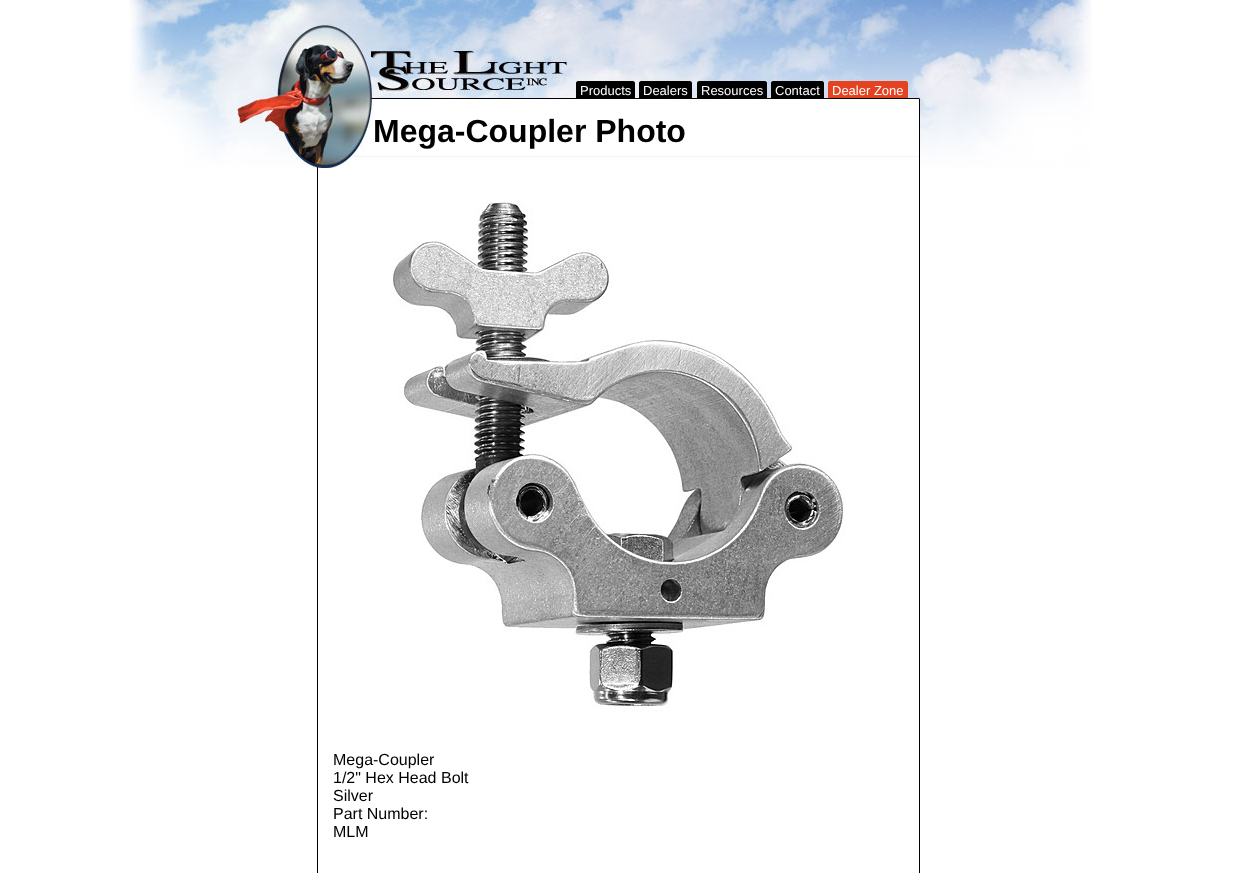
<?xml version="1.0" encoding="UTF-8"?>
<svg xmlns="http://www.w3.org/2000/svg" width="1237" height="873">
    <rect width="100%" height="100%" fill="#FFFFFF"/>
    <image x="129" y="0" width="963" height="169" href="img_01.png"/>
    <path d="M 578 81 H 633 C 634 81 635 82 635 83 V 98 H 576 V 83 C 576 82 577 81 578 81 Z" fill="#000000"/>
    <text x="580" y="95" font-family="Liberation Sans" font-size="13" fill="#FFFFFF">Products</text>
    <path d="M 641 81 H 690 C 691 81 692 82 692 83 V 98 H 639 V 83 C 639 82 640 81 641 81 Z" fill="#000000"/>
    <text x="643" y="95" font-family="Liberation Sans" font-size="13" fill="#FFFFFF">Dealers</text>
    <path d="M 699 81 H 765 C 766 81 767 82 767 83 V 98 H 697 V 83 C 697 82 698 81 699 81 Z" fill="#000000"/>
    <text x="701" y="95" font-family="Liberation Sans" font-size="13" fill="#FFFFFF">Resources</text>
    <path d="M 773 81 H 822 C 823 81 824 82 824 83 V 98 H 771 V 83 C 771 82 772 81 773 81 Z" fill="#000000"/>
    <text x="775" y="95" font-family="Liberation Sans" font-size="13" fill="#FFFFFF">Contact</text>
    <path d="M 830 81 H 906 C 907 81 908 82 908 83 V 98 H 828 V 83 C 828 82 829 81 830 81 Z" fill="#E54221"/>
    <text x="832" y="95" font-family="Liberation Sans" font-size="13" fill="#FFFFFF">Dealer Zone</text>
    <text x="373" y="142" font-family="Liberation Sans" font-size="32" font-weight="700" fill="#000000">Mega-Coupler Photo</text>
    <rect x="919" y="169" width="1" height="704" fill="#000000"/>
    <rect x="317" y="169" width="1" height="704" fill="#000000"/>
    <image x="390" y="201" width="455" height="511" href="img_02.png"/>
    <text font-family="Liberation Sans" font-size="16" fill="#000000">
        <tspan x="333" y="765">Mega-Coupler</tspan>
        <tspan x="333" y="783">1/2" Hex Head Bolt</tspan>
        <tspan x="333" y="801">Silver</tspan>
        <tspan x="333" y="819">Part Number:</tspan>
        <tspan x="333" y="837">MLM</tspan>
    </text>
</svg>
